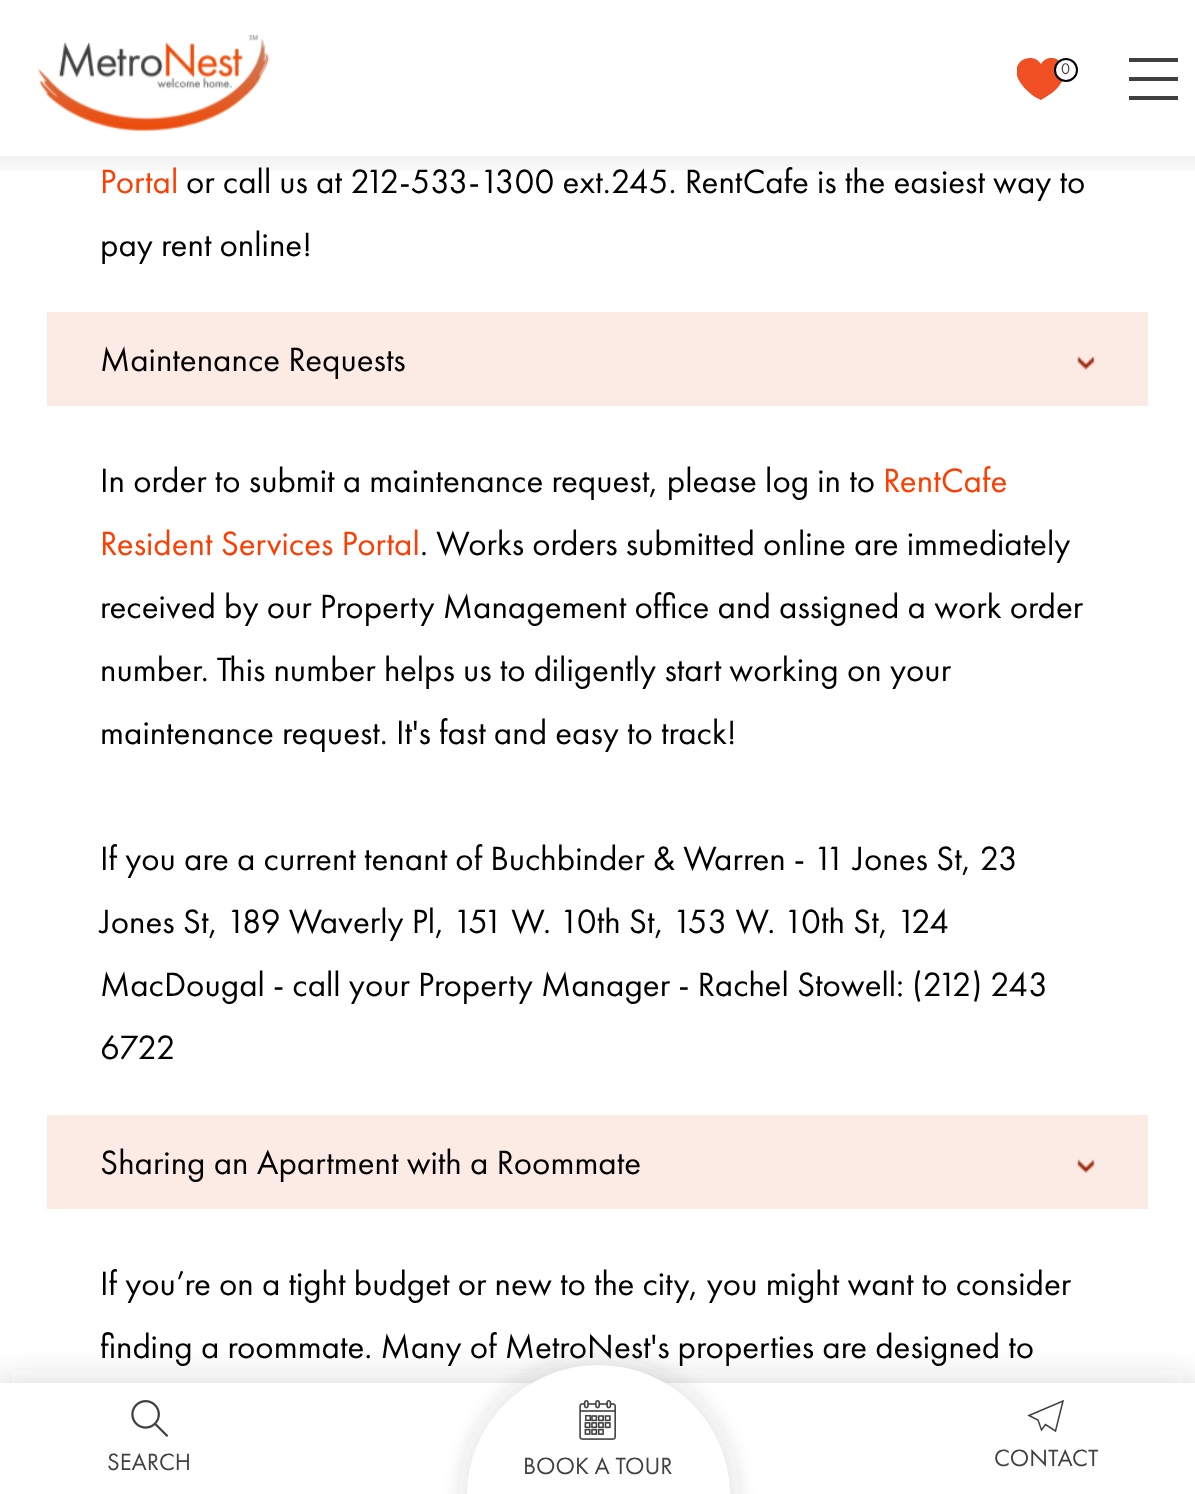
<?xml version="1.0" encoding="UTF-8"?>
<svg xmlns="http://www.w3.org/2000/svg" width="1195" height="1494">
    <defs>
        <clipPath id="clip1"><rect x="1017" y="58" width="47" height="42"/></clipPath>
        <filter id="blur1" x="-50%" y="-200%" width="200%" height="500%"><feGaussianBlur stdDeviation="17.5"/></filter>
        <filter id="blur2" x="-50%" y="-200%" width="200%" height="500%"><feGaussianBlur stdDeviation="9"/></filter>
    </defs>
    <rect width="100%" height="100%" fill="#FFFFFF"/>
    <image x="38" y="35" width="232" height="97" href="img_01.png"/>
    <g clip-path="url(#clip1)">
        <path d="M 1030 58 C 1027 58 1023 59 1020 62 C 1009 74 1025 90 1035 97 L 1041 100 L 1052 93 C 1080 71 1053 46 1041 64 C 1038 60 1035 58 1030 58 Z" fill="#EF4F23"/>
    </g>
    <circle cx="1066" cy="70" r="11" fill="#FFFFFF" stroke="#000000" stroke-width="2"/>
    <text x="1061" y="74" font-family="Futura PT" font-size="16" fill="#404040">0</text>
    <rect x="1129" y="58" width="49" height="4" fill="#404040"/>
    <rect x="1129" y="77" width="49" height="4" fill="#404040"/>
    <rect x="1129" y="96" width="49" height="4" fill="#404040"/>
    <text x="100" y="193" font-family="Futura PT" font-size="35" fill="#FF3D00">Portal</text>
    <text x="186" y="193" font-family="Futura PT" font-size="35" fill="#000000">or call us at 212-533-1300 ext.245. RentCafe is the easiest way to</text>
    <image x="0" y="156" width="1195" height="15" href="img_02.png"/>
    <text x="100" y="256" font-family="Futura PT" font-size="35" fill="#000000">pay rent online!</text>
    <rect x="47" y="312" width="1101" height="94" fill="#FCEBE4"/>
    <text x="100" y="371" font-family="Futura PT" font-size="35" fill="#000000">Maintenance Requests</text>
    <image x="1077" y="356" width="18" height="14" href="img_03.png"/>
    <text x="100" y="492" font-family="Futura PT" font-size="35" fill="#000000">In order to submit a maintenance request, please log in to</text>
    <text x="883" y="492" font-family="Futura PT" font-size="35" fill="#FF3D00">RentCafe</text>
    <text x="100" y="555" font-family="Futura PT" font-size="35" fill="#FF3D00">Resident Services Portal</text>
    <text x="420" y="555" font-family="Futura PT" font-size="35" fill="#000000">. Works orders submitted online are immediately</text>
    <text font-family="Futura PT" font-size="35" fill="#000000">
        <tspan x="100" y="618">received by our Property Management office and assigned a work order</tspan>
        <tspan x="100" y="681">number. This number helps us to diligently start working on your</tspan>
        <tspan x="100" y="744">maintenance request. It's fast and easy to track!</tspan>
    </text>
    <text font-family="Futura PT" font-size="35" fill="#000000">
        <tspan x="100" y="870">If you are a current tenant of Buchbinder &amp; Warren - 11 Jones St, 23</tspan>
        <tspan x="100" y="933">Jones St, 189 Waverly Pl, 151 W. 10th St, 153 W. 10th St, 124</tspan>
        <tspan x="100" y="996">MacDougal - call your Property Manager - Rachel Stowell: (212) 243</tspan>
        <tspan x="100" y="1059">6722</tspan>
    </text>
    <rect x="47" y="1115" width="1101" height="94" fill="#FCEBE4"/>
    <text x="100" y="1174" font-family="Futura PT" font-size="35" fill="#000000">Sharing an Apartment with a Roommate</text>
    <image x="1077" y="1159" width="18" height="14" href="img_04.png"/>
    <text font-family="Futura PT" font-size="35" fill="#000000">
        <tspan x="100" y="1295">If you’re on a tight budget or new to the city, you might want to consider</tspan>
        <tspan x="100" y="1358">finding a roommate. Many of MetroNest's properties are designed to</tspan>
    </text>
    <rect x="0" y="1383" width="1195" height="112" fill="#323232" fill-opacity="0.2" filter="url(#blur1)"/>
    <rect x="0" y="1383" width="1195" height="111" fill="#FFFFFF"/>
    <image x="131" y="1400" width="37" height="37" href="img_05.png"/>
    <text x="107" y="1470" font-family="Futura PT" font-size="24.5" fill="#404040">SEARCH</text>
    <rect x="459" y="1356" width="280" height="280" rx="140" fill="#323232" fill-opacity="0.1" filter="url(#blur2)"/>
    <rect x="467" y="1365" width="263" height="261" rx="131.5" fill="#FFFFFF"/>
    <image x="579" y="1400" width="37" height="40" href="img_06.png"/>
    <text x="523" y="1474" font-family="Futura PT" font-size="24.5" fill="#404040">BOOK A TOUR</text>
    <path d="M 1029 1415.5 L 1063 1401 L 1055.5 1431 L 1045.5 1424.5 L 1041.5 1430 L 1038 1420 Z" fill="none" stroke="#414141" stroke-width="1.5"/>
    <text x="994" y="1466" font-family="Futura PT" font-size="24.5" fill="#404040">CONTACT</text>
</svg>
